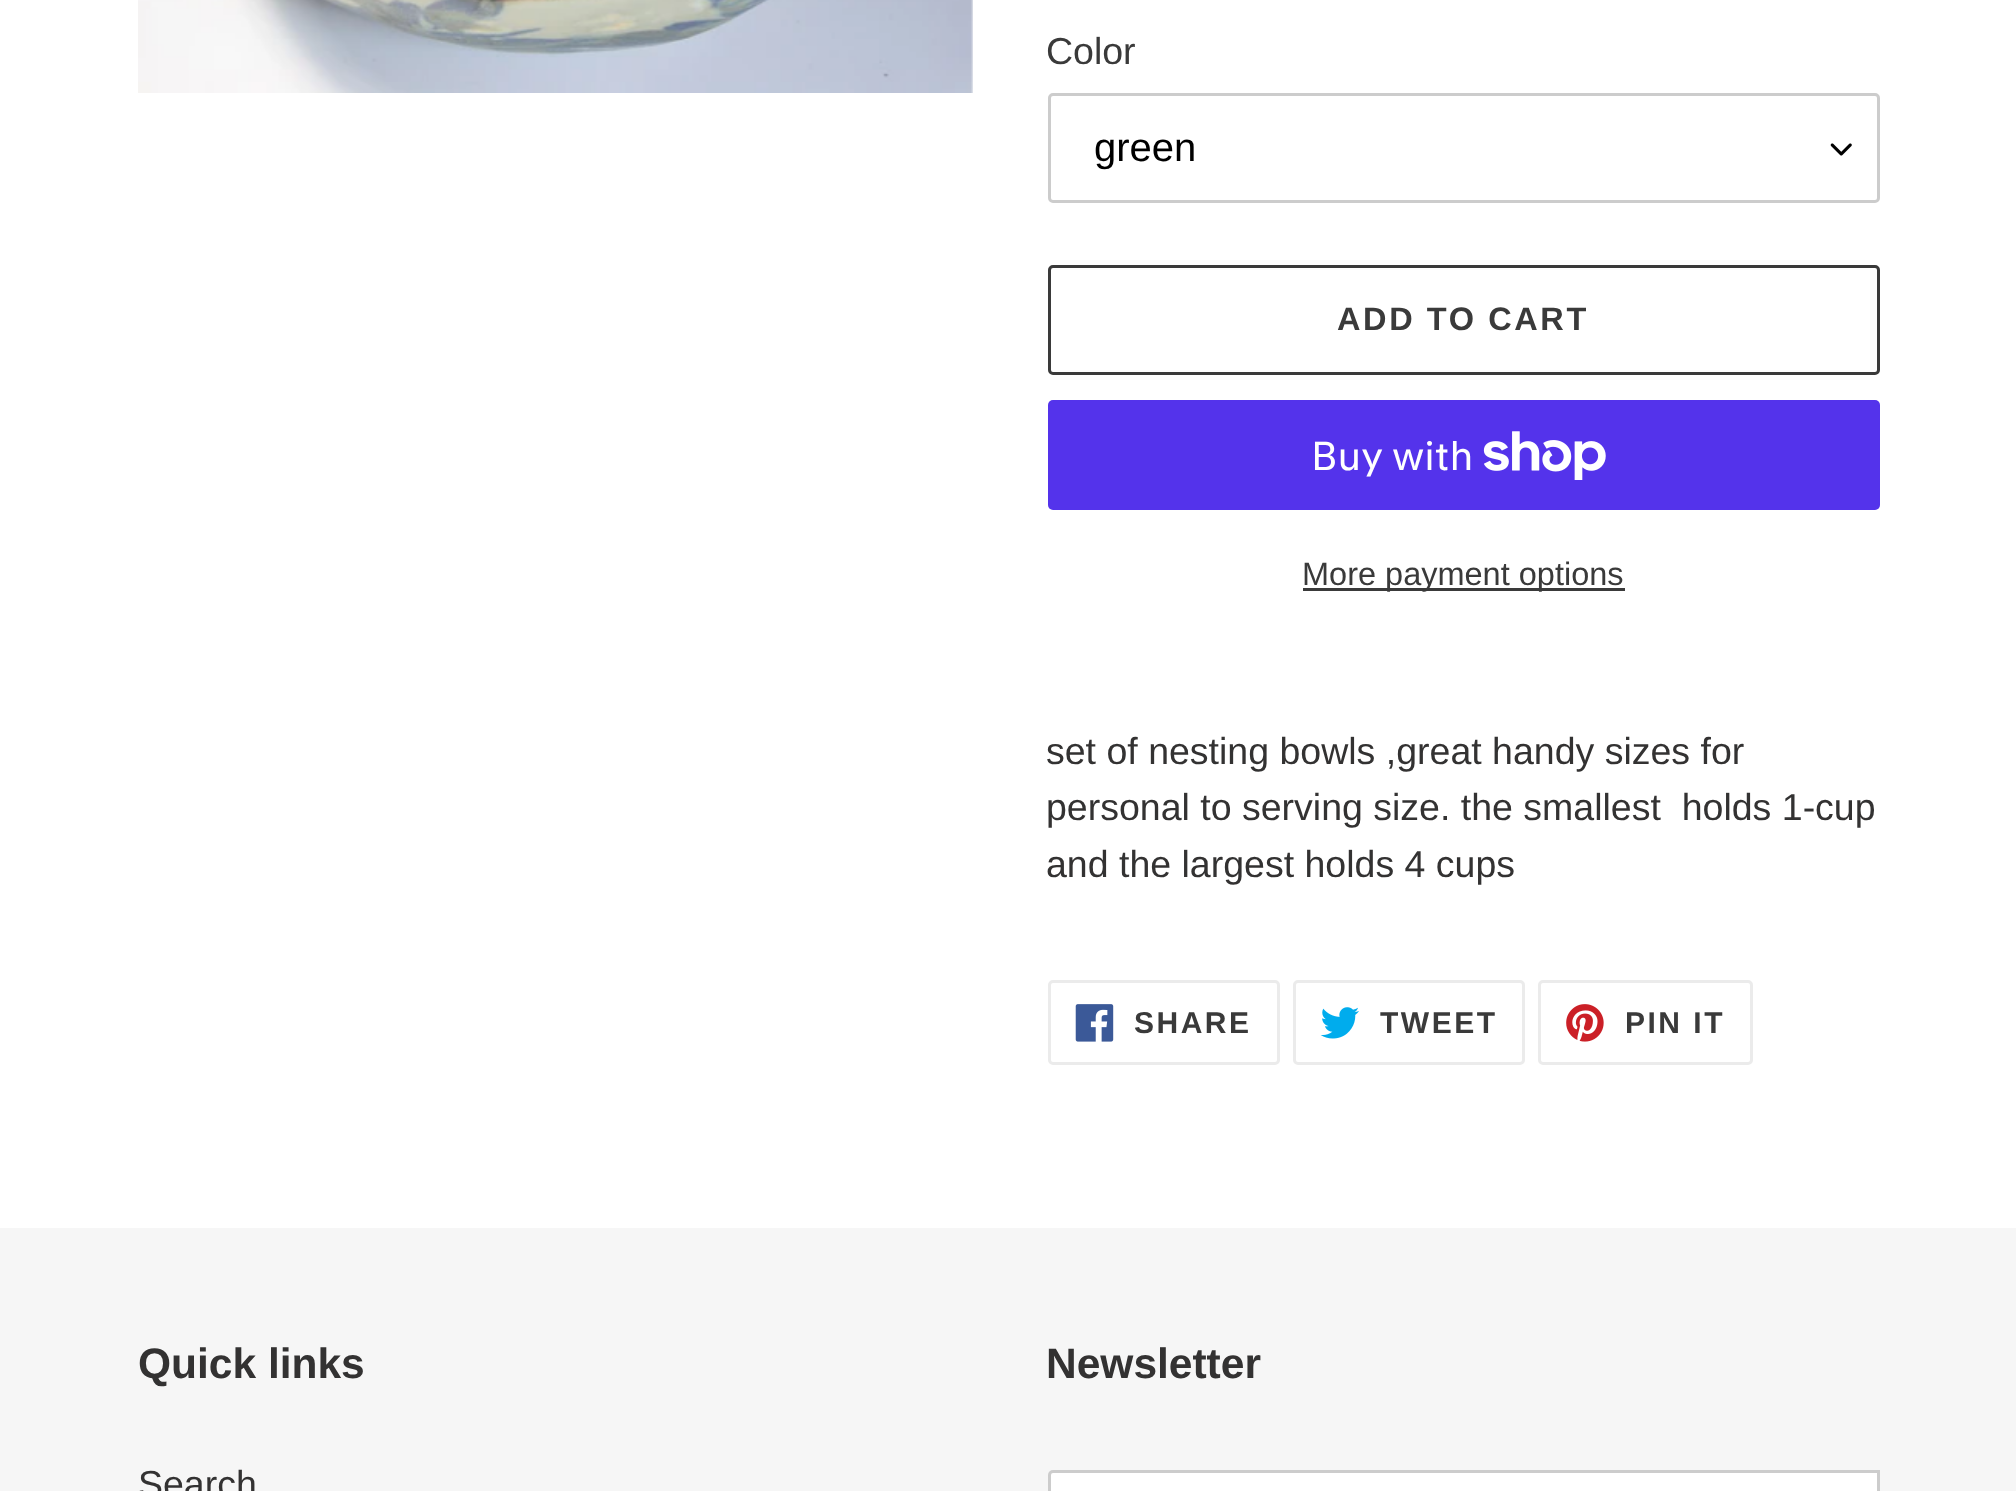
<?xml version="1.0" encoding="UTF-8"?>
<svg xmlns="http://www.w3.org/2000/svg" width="2016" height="1491">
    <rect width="100%" height="100%" fill="#FFFFFF"/>
    <image x="138" y="0" width="835" height="93" href="img_01.png"/>
    <text x="1046" y="64" font-family="Liberation Sans" font-size="37.5" fill="#3A3A3A">Color</text>
    <image x="1830" y="143" width="22" height="13" href="img_02.png"/>
    <rect x="1049.5" y="94.5" width="829" height="107" rx="3.5" fill="none" stroke="#CCCCCC" stroke-width="3"/>
    <text x="1094" y="161" font-family="Liberation Sans" font-size="40" fill="#000000">green</text>
    <rect x="1049.5" y="266.5" width="829" height="107" rx="3.5" fill="none" stroke="#3A3A3A" stroke-width="3"/>
    <text x="1337" y="330" font-family="Liberation Sans" font-size="32.5" font-weight="700" letter-spacing="2.6" fill="#3A3A3A">ADD TO CART</text>
    <rect x="1048" y="400" width="832" height="110" rx="5" fill="#5433EB"/>
    <text x="1311" y="470" font-family="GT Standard" font-size="40" fill="#FFFFFF">Buy with</text>
    <image x="1483" y="431" width="123" height="49" href="img_03.png"/>
    <rect x="1303" y="588" width="322" height="3" fill="#3A3A3A"/>
    <text x="1302" y="585" font-family="Liberation Sans" font-size="32.5" fill="#3A3A3A">More payment options</text>
    <text font-family="Liberation Sans" font-size="37.5" fill="#333232" xml:space="preserve"><tspan x="1046" y="764">set of nesting bowls ,great handy sizes for</tspan><tspan x="1046" y="820">personal to serving size. the smallest  holds 1-cup</tspan><tspan x="1046" y="877">and the largest holds 4 cups</tspan></text>
    <rect x="1049.5" y="981.5" width="229" height="82" rx="3.5" fill="none" stroke="#EBEBEB" stroke-width="3"/>
    <image x="1075" y="1004" width="39" height="38" href="img_04.png"/>
    <text x="1134" y="1033" font-family="Liberation Sans" font-size="30" font-weight="700" letter-spacing="2.5" fill="#3A3A3A">SHARE</text>
    <rect x="1294.5" y="981.5" width="229" height="82" rx="3.5" fill="none" stroke="#EBEBEB" stroke-width="3"/>
    <image x="1320" y="1007" width="39" height="32" href="img_05.png"/>
    <text x="1380" y="1033" font-family="Liberation Sans" font-size="30" font-weight="700" letter-spacing="2.5" fill="#3A3A3A">TWEET</text>
    <rect x="1539.5" y="981.5" width="212" height="82" rx="3.5" fill="none" stroke="#EBEBEB" stroke-width="3"/>
    <image x="1566" y="1004" width="38" height="38" href="img_06.png"/>
    <text x="1625" y="1033" font-family="Liberation Sans" font-size="30" font-weight="700" letter-spacing="2.5" fill="#3A3A3A">PIN IT</text>
    <rect x="0" y="1228" width="2016" height="263" fill="#F6F6F6"/>
    <text x="138" y="1378" font-family="Liberation Sans" font-size="42.5" font-weight="700" fill="#333232">Quick links</text>
    <text x="138" y="1497" font-family="Liberation Sans" font-size="37.5" fill="#333232">Search</text>
    <text x="1046" y="1378" font-family="Liberation Sans" font-size="42.5" font-weight="700" fill="#333232">Newsletter</text>
    <path d="M 1053 1471.5 H 1878.5 V 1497.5 H 1053 C 1051 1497.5 1049.5 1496 1049.5 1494 V 1475 C 1049.5 1473 1051 1471.5 1053 1471.5 Z" fill="#FFFFFF" stroke="#CCCCCC" stroke-width="3"/>
</svg>
